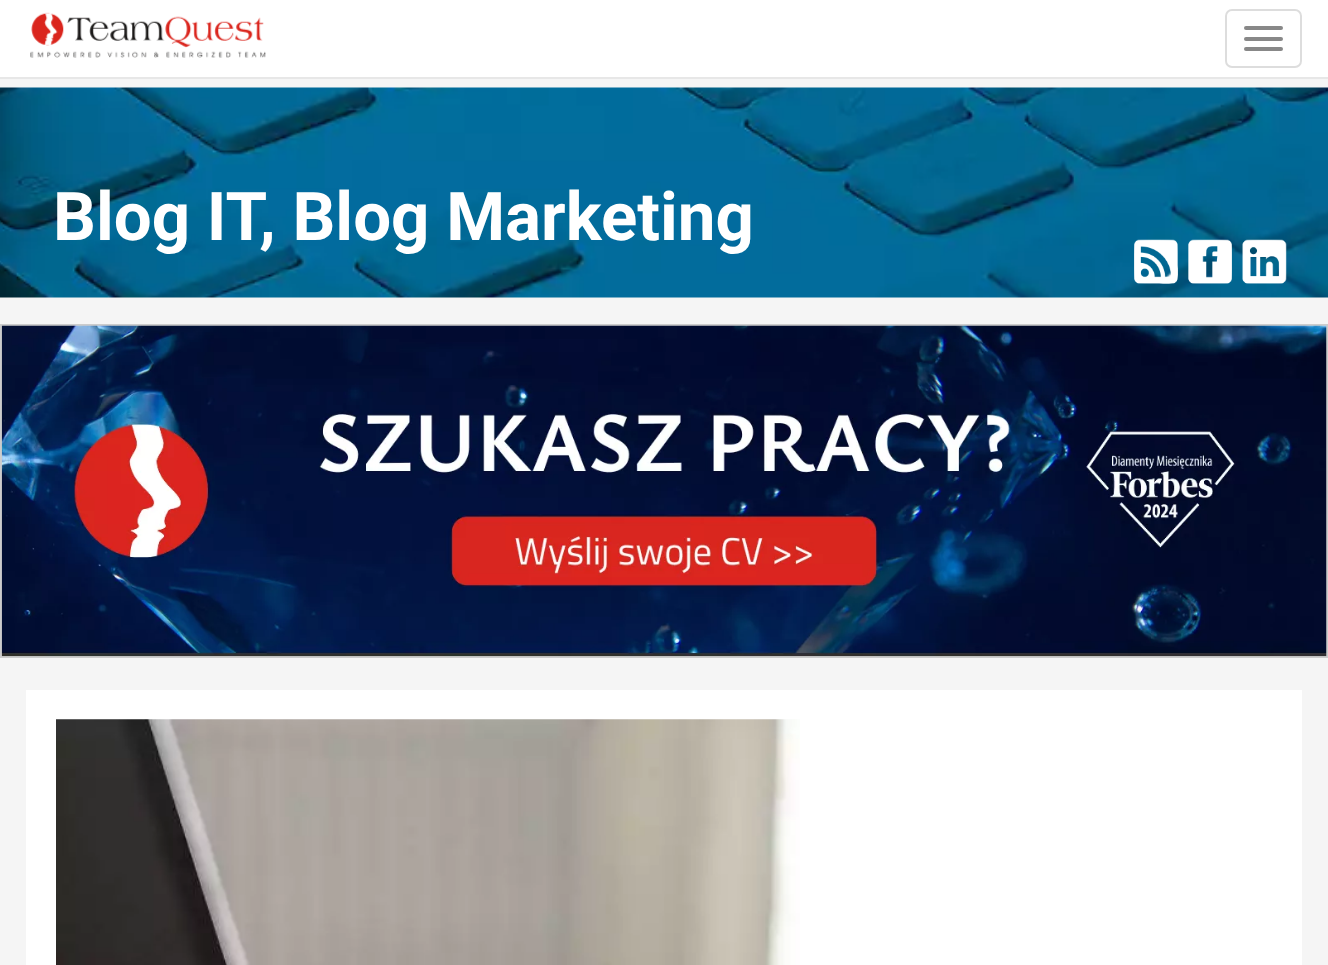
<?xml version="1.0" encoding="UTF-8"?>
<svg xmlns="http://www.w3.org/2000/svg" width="1328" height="965">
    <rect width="100%" height="100%" fill="#F5F5F5"/>
    <rect x="0" y="0" width="1328" height="77" fill="#FFFFFF"/>
    <rect x="0" y="77" width="1328" height="2" fill="#E7E7E7"/>
    <image x="30" y="12" width="236" height="46" href="img_01.png"/>
    <rect x="1226" y="10" width="75" height="57" rx="6" fill="none" stroke="#DDDDDD" stroke-width="2"/>
    <rect x="1244" y="26" width="39" height="4" rx="2" fill="#888888"/>
    <rect x="1244" y="37" width="39" height="4" rx="2" fill="#888888"/>
    <rect x="1244" y="47" width="39" height="4" rx="2" fill="#888888"/>
    <image x="0" y="87" width="1328" height="211" href="img_02.png"/>
    <text x="53" y="240" font-family="Roboto" font-size="67.25" font-weight="700" fill="#FFFFFF">Blog IT, Blog Marketing</text>
    <image x="1159" y="265" width="19" height="19" href="img_03.png"/>
    <image x="1134" y="239" width="44" height="45" href="img_04.png"/>
    <image x="1188" y="239" width="44" height="45" href="img_05.png"/>
    <image x="1242" y="239" width="45" height="45" href="img_06.png"/>
    <rect x="1" y="325" width="1326" height="332" fill="none" stroke="#CCCCCC" stroke-width="2"/>
    <image x="1" y="325" width="1326" height="332" href="img_07.png"/>
    <rect x="26" y="690" width="1276" height="275" fill="#FFFFFF"/>
    <image x="56" y="719" width="744" height="246" href="img_08.png"/>
</svg>
